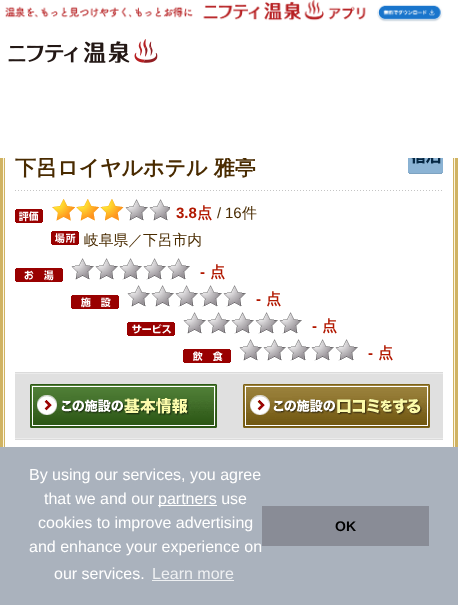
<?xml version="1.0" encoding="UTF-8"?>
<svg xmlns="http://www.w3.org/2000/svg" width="458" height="605">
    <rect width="100%" height="100%" fill="#FCF5DE"/>
    <rect x="1.5" y="125.5" width="455" height="333" fill="none" stroke="#D0B362" stroke-width="3"/>
    <rect x="5" y="158" width="448" height="289" fill="#FFFFFF"/>
    <rect x="4.5" y="128.5" width="449" height="327" fill="none" stroke="#D0B362"/>
    <text x="15" y="175" font-family="WenQuanYi Zen Hei" font-size="21" font-weight="700" fill="#492B00">下呂ロイヤルホテル 雅亭</text>
    <rect x="0" y="0" width="458" height="158" fill="#FFFFFF"/>
    <image x="5" y="0" width="438" height="22" href="img_01.png"/>
    <image x="8" y="39" width="150" height="24" href="img_02.png"/>
    <image x="15" y="190" width="427" height="1" href="img_03.png"/>
    <image x="408" y="158" width="35" height="16" href="img_04.png"/>
    <image x="15" y="209" width="28" height="14" href="img_05.png"/>
    <image x="52" y="199" width="118" height="22" href="img_06.png"/>
    <text x="176" y="218" font-family="Liberation Sans" font-size="15" font-weight="700" fill="#B21800">3.8</text>
    <text x="197" y="218" font-family="WenQuanYi Zen Hei" font-size="15" font-weight="700" fill="#B21800">点</text>
    <text x="217" y="218" font-family="Liberation Sans" font-size="14.75" fill="#492B00">/</text>
    <text x="225" y="218" font-family="Liberation Sans" font-size="15" fill="#492B00">16</text>
    <text x="242" y="218" font-family="WenQuanYi Zen Hei" font-size="15" font-weight="500" fill="#492B00">件</text>
    <image x="51" y="231" width="28" height="14" href="img_07.png"/>
    <text x="84" y="245" font-family="WenQuanYi Zen Hei" font-size="14.75" font-weight="500" fill="#492B00">岐阜県／下呂市内</text>
    <image x="15" y="268" width="48" height="14" href="img_08.png"/>
    <image x="71" y="258" width="119" height="22" href="img_09.png"/>
    <text x="200" y="277" font-family="Liberation Sans" font-size="15" font-weight="700" fill="#B21800">-</text>
    <text x="210" y="277" font-family="WenQuanYi Zen Hei" font-size="15" font-weight="700" fill="#B21800">点</text>
    <image x="71" y="295" width="48" height="14" href="img_10.png"/>
    <image x="127" y="285" width="119" height="22" href="img_09.png"/>
    <text x="256" y="304" font-family="Liberation Sans" font-size="15" font-weight="700" fill="#B21800">-</text>
    <text x="266" y="304" font-family="WenQuanYi Zen Hei" font-size="15" font-weight="700" fill="#B21800">点</text>
    <image x="127" y="322" width="48" height="14" href="img_11.png"/>
    <image x="183" y="312" width="119" height="22" href="img_09.png"/>
    <text x="312" y="331" font-family="Liberation Sans" font-size="15" font-weight="700" fill="#B21800">-</text>
    <text x="322" y="331" font-family="WenQuanYi Zen Hei" font-size="15" font-weight="700" fill="#B21800">点</text>
    <image x="183" y="349" width="48" height="14" href="img_12.png"/>
    <image x="239" y="339" width="119" height="22" href="img_09.png"/>
    <text x="368" y="358" font-family="Liberation Sans" font-size="15" font-weight="700" fill="#B21800">-</text>
    <text x="378" y="358" font-family="WenQuanYi Zen Hei" font-size="15" font-weight="700" fill="#B21800">点</text>
    <image x="15" y="372" width="428" height="68" href="img_13.png"/>
    <image x="30" y="384" width="187" height="44" href="img_14.png"/>
    <image x="243" y="384" width="187" height="44" href="img_15.png"/>
    <rect x="0" y="447" width="458" height="158" fill="#AAB2BD"/>
    <text x="29" y="480" font-family="Liberation Sans" font-size="16" fill="#FFFFFF">By using our services, you agree</text>
    <text x="44" y="504" font-family="Liberation Sans" font-size="16" fill="#FFFFFF">that we and our</text>
    <rect x="158" y="505" width="59" height="1" fill="#FFFFFF"/>
    <text x="158" y="504" font-family="Liberation Sans" font-size="16" fill="#FFFFFF">partners use</text>
    <text x="38" y="528" font-family="Liberation Sans" font-size="16" fill="#FFFFFF">cookies to improve advertising</text>
    <text x="29" y="552" font-family="Liberation Sans" font-size="16" fill="#FFFFFF">and enhance your experience on</text>
    <text x="54" y="579" font-family="Liberation Sans" font-size="16" fill="#FFFFFF">our services.</text>
    <text x="152" y="579" font-family="Liberation Sans" font-size="16" fill="#EEF0F2">Learn more</text>
    <rect x="152" y="580" width="82" height="1" fill="#EEF0F2"/>
    <rect x="262" y="506" width="167" height="40" fill="#898C96"/>
    <text x="335" y="531" font-family="Liberation Sans" font-size="14" font-weight="700" fill="#000000">OK</text>
</svg>
